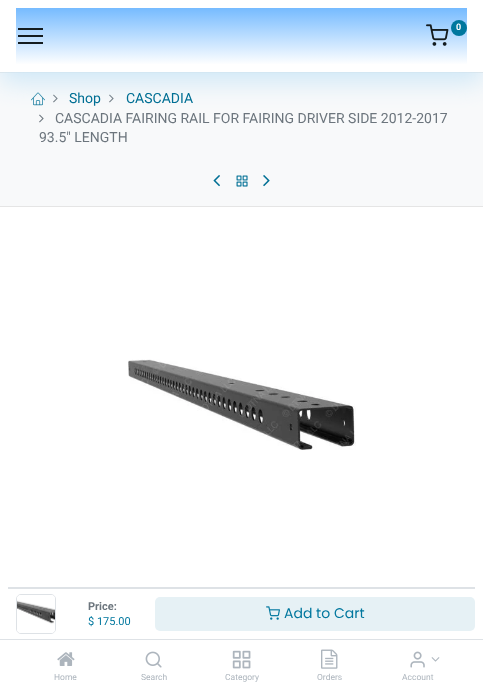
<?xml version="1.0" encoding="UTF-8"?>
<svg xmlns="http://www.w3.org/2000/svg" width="483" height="691">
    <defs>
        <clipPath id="clip1"><rect x="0" y="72" width="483" height="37"/></clipPath>
        <filter id="blur1" x="-50%" y="-200%" width="200%" height="500%"><feGaussianBlur stdDeviation="13"/></filter>
        <linearGradient id="g1" gradientUnits="userSpaceOnUse" x1="242" y1="8" x2="242" y2="64"><stop offset="0" stop-color="#76BBFF"/><stop offset="1" stop-color="#FDFEFF"/></linearGradient>
    </defs>
    <rect width="100%" height="100%" fill="#FFFFFF"/>
    <rect x="0" y="73" width="483" height="133" fill="#F8F9FA"/>
    <rect x="0" y="72" width="483" height="1" fill="#E5E5E5"/>
    <image x="31" y="92" width="14" height="14" href="img_02.png"/>
    <image x="53" y="94" width="5" height="9" href="img_03.png"/>
    <image x="109" y="94" width="5" height="9" href="img_03.png"/>
    <image x="39" y="114" width="5" height="9" href="img_03.png"/>
    <g clip-path="url(#clip1)">
        <rect x="0" y="10" width="483" height="72" fill="#CEE7F7" filter="url(#blur1)"/>
    </g>
    <rect x="16" y="8" width="451" height="56" fill="url(#g1)"/>
    <image x="426" y="24" width="23" height="22" href="img_01.png"/>
    <circle cx="459" cy="28" r="8" fill="#00779E"/>
    <text x="456" y="30" font-family="Roboto" font-size="9" font-weight="700" fill="#FFFFFF">0</text>
    <rect x="18" y="28" width="25" height="2" fill="#141C1F"/>
    <rect x="18" y="35" width="25" height="2" fill="#141C1F"/>
    <rect x="18" y="42" width="25" height="2" fill="#141C1F"/>
    <rect x="0" y="206" width="483" height="1" fill="#E5E5E5"/>
    <text x="69" y="103" font-family="Roboto" font-size="14" fill="#006F94">Shop</text>
    <text x="126" y="103" font-family="Roboto" font-size="14" fill="#006F94">CASCADIA</text>
    <text x="55" y="123" font-family="Roboto" font-size="14" fill="#6C757D">CASCADIA FAIRING RAIL FOR FAIRING DRIVER SIDE 2012-2017</text>
    <text x="39" y="142" font-family="Roboto" font-size="14" fill="#6C757D">93.5" LENGTH</text>
    <image x="213" y="175" width="7" height="12" href="img_04.png"/>
    <image x="236" y="175" width="12" height="12" href="img_05.png"/>
    <image x="263" y="175" width="7" height="12" href="img_06.png"/>
    <image x="128" y="359" width="228" height="91" href="img_07.png"/>
    <rect x="8" y="587" width="467" height="2" fill="#DEE2E6"/>
    <rect x="0" y="639" width="483" height="1" fill="#DEE2E6"/>
    <rect x="16.5" y="594.5" width="39" height="39" rx="4.5" fill="none" stroke="#DEE2E6"/>
    <image x="17" y="595" width="38" height="38" href="img_08.png"/>
    <text x="88" y="610" font-family="Roboto" font-size="11" font-weight="700" fill="#6C757D">Price:</text>
    <text x="88" y="625" font-family="Roboto" font-size="11" fill="#00779E">$ 175.00</text>
    <rect x="155" y="597" width="320" height="34" rx="5" fill="#E6F1F5"/>
    <image x="266" y="606" width="14" height="14" href="img_09.png"/>
    <text x="284" y="618" font-family="Poppins" font-size="14" fill="#00779E">Add to Cart</text>
    <image x="57" y="652" width="18" height="14" href="img_10.png"/>
    <text x="54" y="680" font-family="Roboto" font-size="8.5" fill="#ADB5BD">Home</text>
    <image x="145" y="651" width="17" height="17" href="img_11.png"/>
    <text x="141" y="680" font-family="Roboto" font-size="8.5" fill="#ADB5BD">Search</text>
    <image x="232" y="650" width="19" height="19" href="img_12.png"/>
    <text x="225" y="680" font-family="Roboto" font-size="8.5" fill="#ADB5BD">Category</text>
    <image x="321" y="649" width="17" height="20" href="img_13.png"/>
    <text x="317" y="680" font-family="Roboto" font-size="8.5" fill="#ADB5BD">Orders</text>
    <image x="410" y="651" width="15" height="17" href="img_14.png"/>
    <image x="431" y="657" width="9" height="5" href="img_15.png"/>
    <text x="402" y="680" font-family="Roboto" font-size="8.5" fill="#ADB5BD">Account</text>
</svg>
